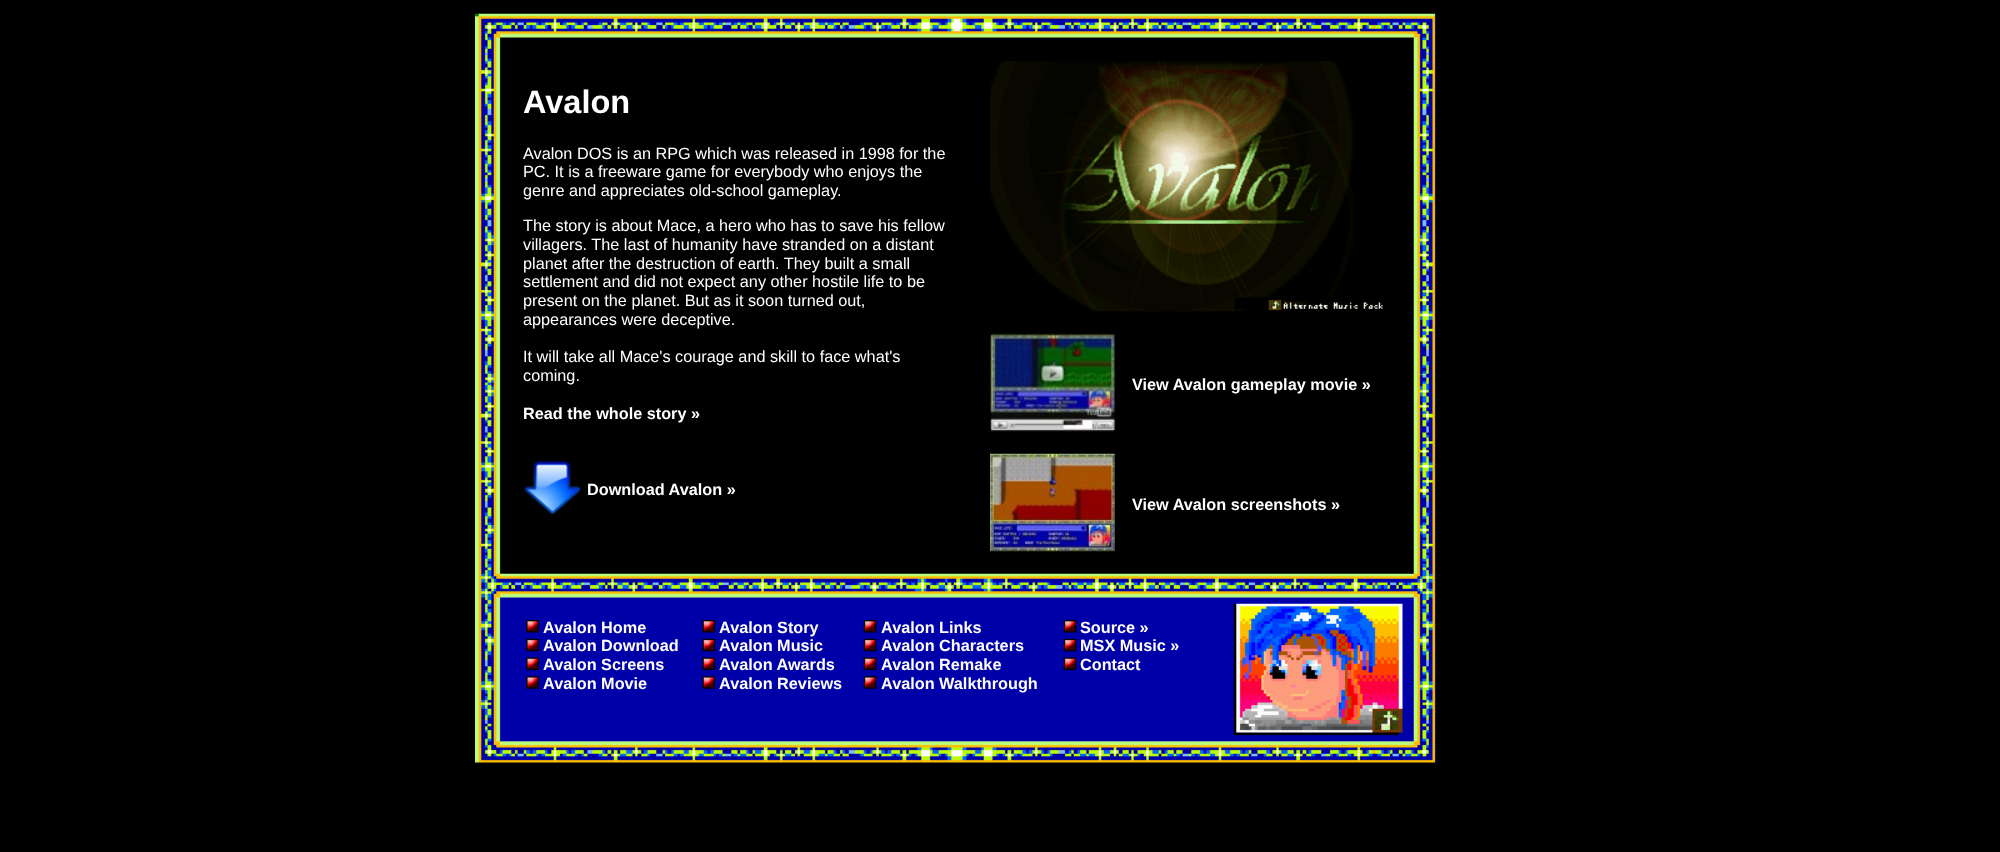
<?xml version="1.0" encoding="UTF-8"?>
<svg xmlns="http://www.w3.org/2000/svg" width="2000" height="852">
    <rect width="100%" height="100%" fill="#000000"/>
    <image x="475" y="13" width="961" height="750" href="img_01.png"/>
    <text x="523" y="113" font-family="Liberation Sans" font-size="32.5" font-weight="700" fill="#FFFFFF">Avalon</text>
    <text font-family="Liberation Sans" font-size="16.25" fill="#FFFFFF">
        <tspan x="523" y="159">Avalon DOS is an RPG which was released in 1998 for the</tspan>
        <tspan x="523" y="177">PC. It is a freeware game for everybody who enjoys the</tspan>
        <tspan x="523" y="196">genre and appreciates old-school gameplay.</tspan>
    </text>
    <text font-family="Liberation Sans" font-size="16.25" fill="#FFFFFF">
        <tspan x="523" y="231">The story is about Mace, a hero who has to save his fellow</tspan>
        <tspan x="523" y="250">villagers. The last of humanity have stranded on a distant</tspan>
        <tspan x="523" y="269">planet after the destruction of earth. They built a small</tspan>
        <tspan x="523" y="287">settlement and did not expect any other hostile life to be</tspan>
        <tspan x="523" y="306">present on the planet. But as it soon turned out,</tspan>
        <tspan x="523" y="325">appearances were deceptive.</tspan>
    </text>
    <text font-family="Liberation Sans" font-size="16.25" fill="#FFFFFF">
        <tspan x="523" y="362">It will take all Mace's courage and skill to face what's</tspan>
        <tspan x="523" y="381">coming.</tspan>
    </text>
    <text x="523" y="419" font-family="Liberation Sans" font-size="16.25" font-weight="700" fill="#FFFFFF">Read the whole story »</text>
    <image x="524" y="461" width="57" height="53" href="img_02.png"/>
    <text x="587" y="495" font-family="Liberation Sans" font-size="16.25" font-weight="700" fill="#FFFFFF">Download Avalon »</text>
    <image x="990" y="61" width="393" height="251" href="img_03.png"/>
    <image x="990" y="333" width="125" height="99" href="img_04.png"/>
    <text x="1132" y="390" font-family="Liberation Sans" font-size="16.25" font-weight="700" fill="#FFFFFF">View Avalon gameplay movie »</text>
    <image x="990" y="453" width="125" height="99" href="img_05.png"/>
    <text x="1132" y="510" font-family="Liberation Sans" font-size="16.25" font-weight="700" fill="#FFFFFF">View Avalon screenshots »</text>
    <image x="526" y="620" width="13" height="13" href="img_06.png"/>
    <text x="543" y="633" font-family="Liberation Sans" font-size="16.25" font-weight="700" fill="#FFFFFF">Avalon Home</text>
    <image x="526" y="638" width="13" height="14" href="img_07.png"/>
    <text x="543" y="651" font-family="Liberation Sans" font-size="16.25" font-weight="700" fill="#FFFFFF">Avalon Download</text>
    <image x="526" y="657" width="13" height="13" href="img_08.png"/>
    <text x="543" y="670" font-family="Liberation Sans" font-size="16.25" font-weight="700" fill="#FFFFFF">Avalon Screens</text>
    <image x="526" y="676" width="13" height="13" href="img_09.png"/>
    <text x="543" y="689" font-family="Liberation Sans" font-size="16.25" font-weight="700" fill="#FFFFFF">Avalon Movie</text>
    <image x="702" y="620" width="13" height="13" href="img_10.png"/>
    <text x="719" y="633" font-family="Liberation Sans" font-size="16.25" font-weight="700" fill="#FFFFFF">Avalon Story</text>
    <image x="702" y="638" width="13" height="14" href="img_11.png"/>
    <text x="719" y="651" font-family="Liberation Sans" font-size="16.25" font-weight="700" fill="#FFFFFF">Avalon Music</text>
    <image x="702" y="657" width="13" height="13" href="img_12.png"/>
    <text x="719" y="670" font-family="Liberation Sans" font-size="16.25" font-weight="700" fill="#FFFFFF">Avalon Awards</text>
    <image x="702" y="676" width="13" height="13" href="img_13.png"/>
    <text x="719" y="689" font-family="Liberation Sans" font-size="16.25" font-weight="700" fill="#FFFFFF">Avalon Reviews</text>
    <image x="863" y="620" width="14" height="13" href="img_14.png"/>
    <text x="881" y="633" font-family="Liberation Sans" font-size="16.25" font-weight="700" fill="#FFFFFF">Avalon Links</text>
    <image x="863" y="638" width="14" height="14" href="img_15.png"/>
    <text x="881" y="651" font-family="Liberation Sans" font-size="16.25" font-weight="700" fill="#FFFFFF">Avalon Characters</text>
    <image x="863" y="657" width="14" height="13" href="img_16.png"/>
    <text x="881" y="670" font-family="Liberation Sans" font-size="16.25" font-weight="700" fill="#FFFFFF">Avalon Remake</text>
    <image x="863" y="676" width="14" height="13" href="img_17.png"/>
    <text x="881" y="689" font-family="Liberation Sans" font-size="16.25" font-weight="700" fill="#FFFFFF">Avalon Walkthrough</text>
    <image x="1063" y="620" width="14" height="13" href="img_14.png"/>
    <text x="1080" y="633" font-family="Liberation Sans" font-size="16.25" font-weight="700" fill="#FFFFFF">Source »</text>
    <image x="1063" y="638" width="14" height="14" href="img_15.png"/>
    <text x="1080" y="651" font-family="Liberation Sans" font-size="16.25" font-weight="700" fill="#FFFFFF">MSX Music »</text>
    <image x="1063" y="657" width="14" height="13" href="img_16.png"/>
    <text x="1080" y="670" font-family="Liberation Sans" font-size="16.25" font-weight="700" fill="#FFFFFF">Contact</text>
</svg>
